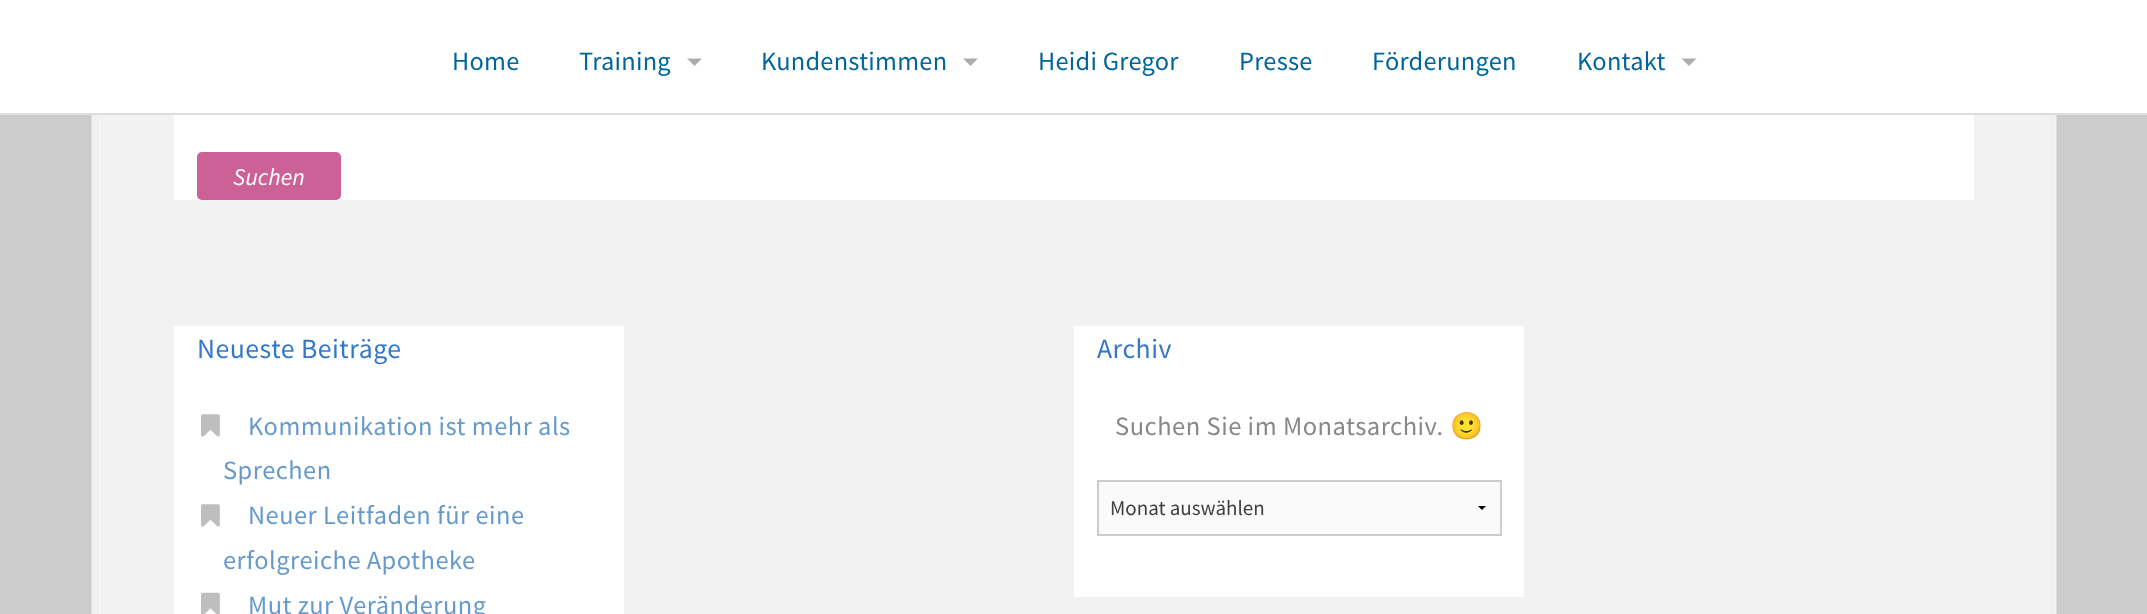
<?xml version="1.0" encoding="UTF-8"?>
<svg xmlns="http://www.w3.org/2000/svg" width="2147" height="614">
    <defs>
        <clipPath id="clip1"><rect x="1464" y="506" width="36" height="5"/></clipPath>
    </defs>
    <rect width="100%" height="100%" fill="#FFFFFF"/>
    <image x="0" y="115" width="2147" height="499" href="img_01.png"/>
    <text x="452" y="70" font-family="Source Sans Pro" font-size="26.4" letter-spacing="0.25" fill="#006699">Home</text>
    <text x="579" y="70" font-family="Source Sans Pro" font-size="26.4" letter-spacing="0.25" fill="#006699">Training</text>
    <path d="M 687 58.5 H 702 L 694.5 66 Z" fill="#ADADAD"/>
    <text x="761" y="70" font-family="Source Sans Pro" font-size="26.4" letter-spacing="0.25" fill="#006699">Kundenstimmen</text>
    <path d="M 963 58.5 H 978 L 970.5 66 Z" fill="#ADADAD"/>
    <text x="1038" y="70" font-family="Source Sans Pro" font-size="26.4" letter-spacing="0.25" fill="#006699">Heidi Gregor</text>
    <text x="1239" y="70" font-family="Source Sans Pro" font-size="26.4" letter-spacing="0.25" fill="#006699">Presse</text>
    <text x="1372" y="70" font-family="Source Sans Pro" font-size="26.4" letter-spacing="0.25" fill="#006699">Förderungen</text>
    <text x="1577" y="70" font-family="Source Sans Pro" font-size="26.4" letter-spacing="0.25" fill="#006699">Kontakt</text>
    <path d="M 1681.5 58.5 H 1696.5 L 1689 66 Z" fill="#ADADAD"/>
    <rect x="0" y="113" width="2147" height="2" fill="#DDDDDD"/>
    <rect x="174" y="115" width="1800" height="85" fill="#FFFFFF"/>
    <rect x="197" y="152" width="144" height="48" rx="5" fill="#CC6198"/>
    <text x="233" y="185" font-family="Source Sans Pro" font-size="24" font-style="italic" fill="#FFFFFF">Suchen</text>
    <rect x="174" y="326" width="450" height="288" fill="#FFFFFF"/>
    <text x="197" y="358" font-family="Source Sans Pro" font-size="27.75" letter-spacing="0.5" fill="#3377CC">Neueste Beiträge</text>
    <image x="201" y="414" width="19" height="23" href="img_02.png"/>
    <text x="248" y="435" font-family="Source Sans Pro" font-size="26.4" letter-spacing="0.5" fill="#6699CC">Kommunikation ist mehr als</text>
    <text x="223" y="479" font-family="Source Sans Pro" font-size="26.4" letter-spacing="0.5" fill="#6699CC">Sprechen</text>
    <image x="201" y="504" width="19" height="23" href="img_02.png"/>
    <text x="248" y="524" font-family="Source Sans Pro" font-size="26.4" letter-spacing="0.5" fill="#6699CC">Neuer Leitfaden für eine</text>
    <text x="223" y="569" font-family="Source Sans Pro" font-size="26.4" letter-spacing="0.5" fill="#6699CC">erfolgreiche Apotheke</text>
    <image x="201" y="592" width="19" height="22" href="img_03.png"/>
    <text x="248" y="614" font-family="Source Sans Pro" font-size="26.4" letter-spacing="0.5" fill="#6699CC">Mut zur Veränderung</text>
    <rect x="1074" y="326" width="450" height="271" fill="#FFFFFF"/>
    <text x="1097" y="358" font-family="Source Sans Pro" font-size="27.75" letter-spacing="0.5" fill="#3377CC">Archiv</text>
    <text x="1115" y="435" font-family="Source Sans Pro" font-size="26.5" letter-spacing="0.5" fill="#888888">Suchen Sie im Monatsarchiv.</text>
    <text x="1450" y="435" font-family="Noto Color Emoji" font-size="26.5" letter-spacing="0.5" fill="#888888">🙂</text>
    <rect x="1099" y="482" width="401" height="52" fill="#FAFAFA"/>
    <g clip-path="url(#clip1)">
        <path d="M 1486.5 505.5 L 1482 510 L 1477.5 505.5 Z" fill="#000000"/>
    </g>
    <rect x="1098" y="481" width="403" height="54" fill="none" stroke="#CCCCCC" stroke-width="2"/>
    <text x="1110" y="515" font-family="Source Sans Pro" font-size="21" fill="#3F3F3F">Monat auswählen</text>
</svg>
